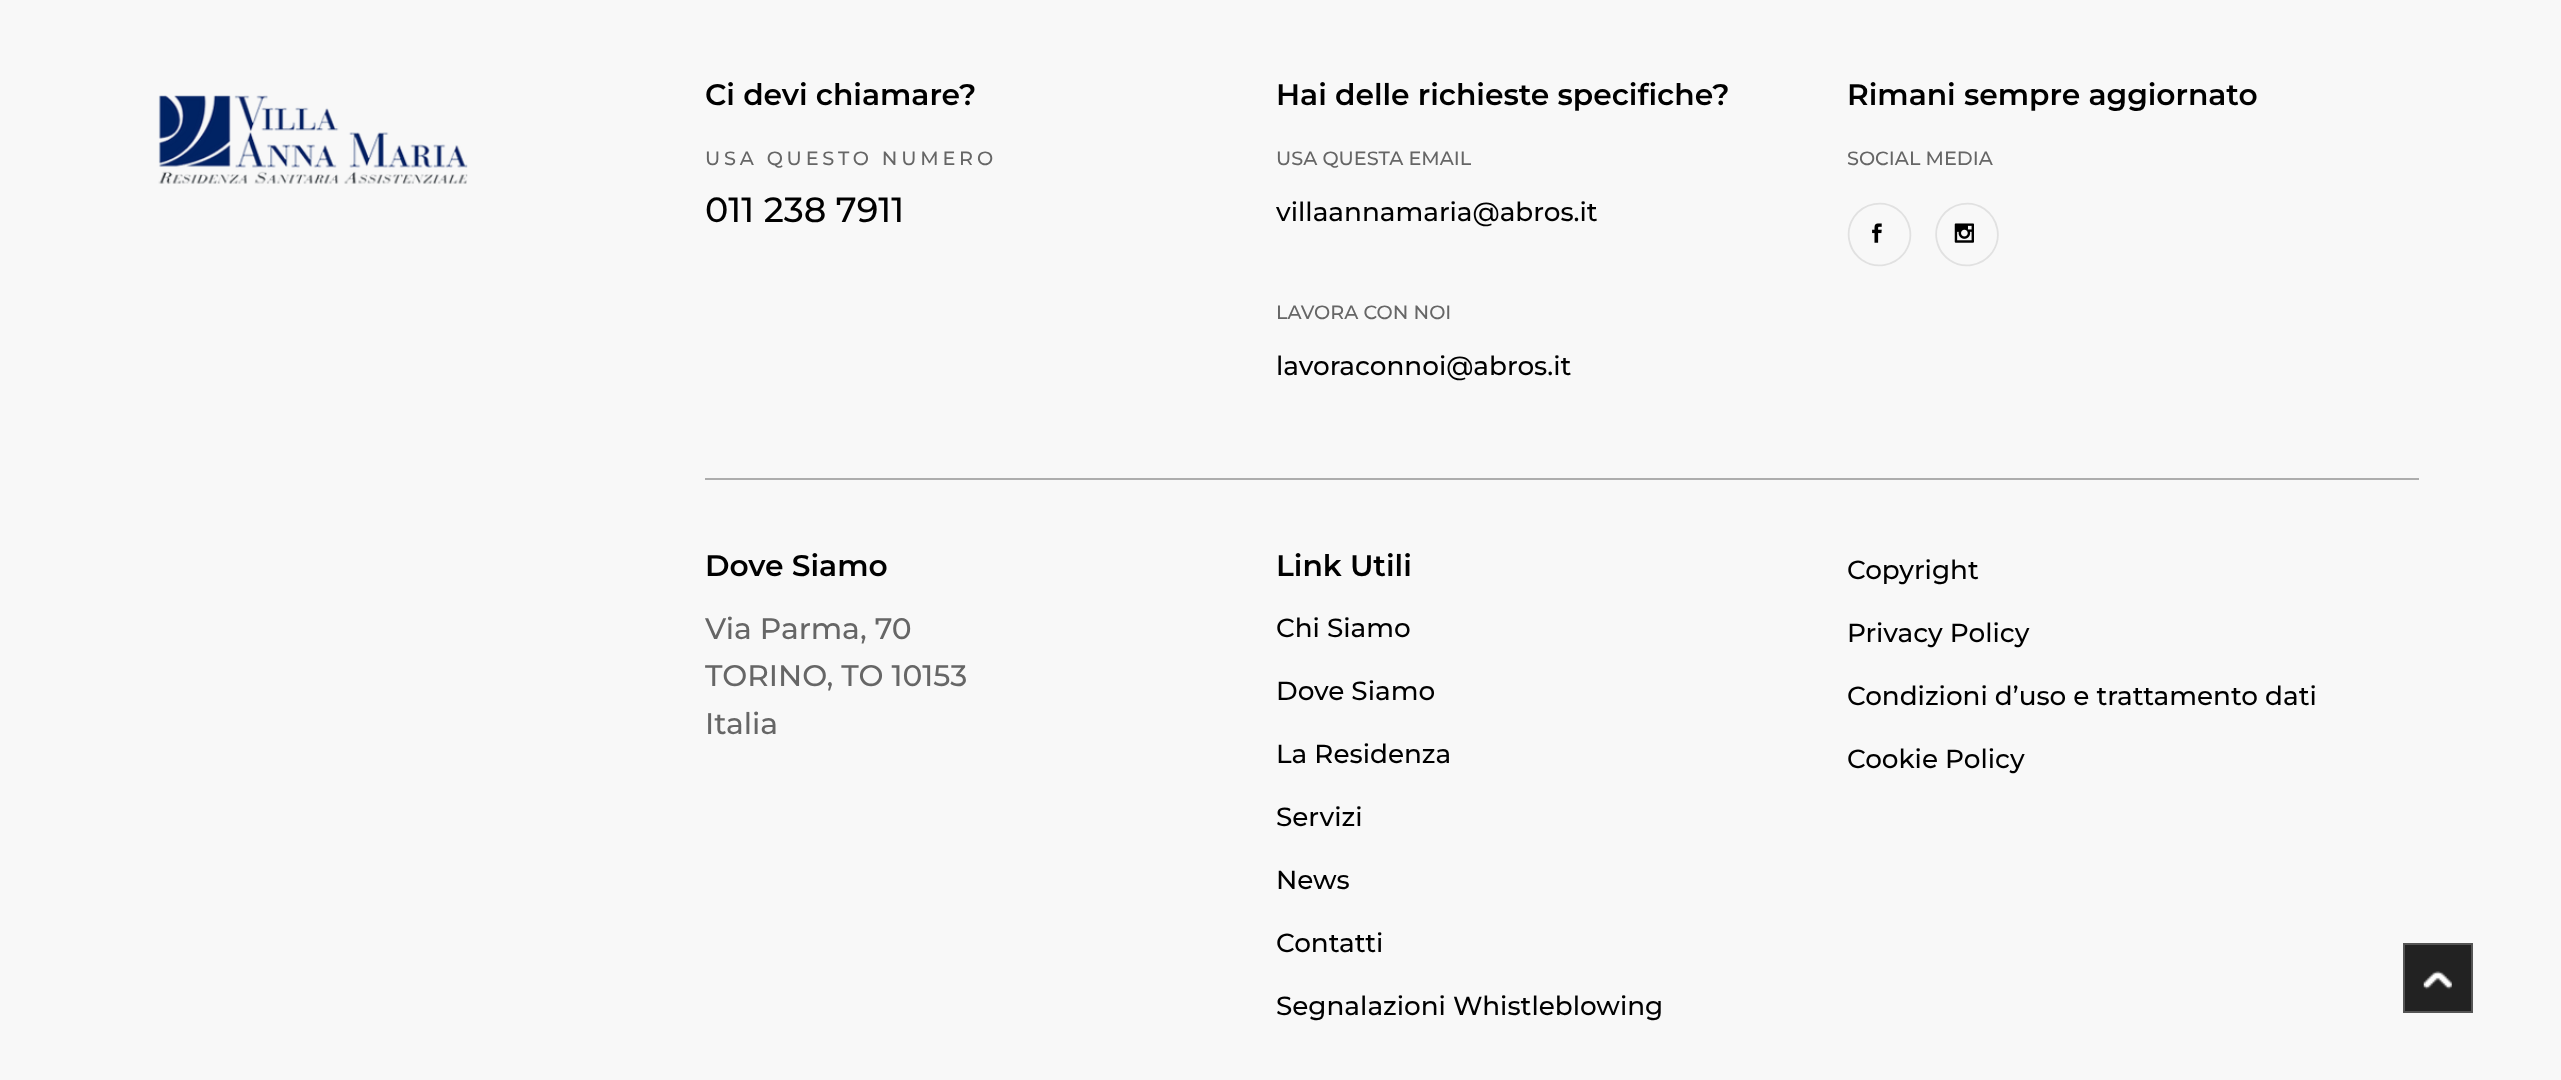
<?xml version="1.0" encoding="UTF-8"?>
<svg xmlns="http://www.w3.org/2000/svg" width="2561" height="1080">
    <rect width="100%" height="100%" fill="#F8F8F8"/>
    <image x="158" y="95" width="310" height="89" href="img_01.png"/>
    <text x="705" y="105" font-family="Montserrat" font-size="29.75" font-weight="600" fill="#000000">Ci devi chiamare?</text>
    <text x="705" y="165" font-family="Montserrat" font-size="19.25" font-weight="500" letter-spacing="3.8" fill="#666666">USA QUESTO NUMERO</text>
    <text x="705" y="222" font-family="Montserrat" font-size="35" font-weight="500" fill="#000000">011 238 7911</text>
    <text x="1276" y="105" font-family="Montserrat" font-size="29.75" font-weight="600" fill="#000000">Hai delle richieste specifiche?</text>
    <text x="1276" y="165" font-family="Montserrat" font-size="19.25" font-weight="500" fill="#666666">USA QUESTA EMAIL</text>
    <text x="1276" y="221" font-family="Montserrat" font-size="26.25" font-weight="500" fill="#000000">villaannamaria@abros.it</text>
    <text x="1276" y="319" font-family="Montserrat" font-size="19.25" font-weight="500" fill="#666666">LAVORA CON NOI</text>
    <text x="1276" y="375" font-family="Montserrat" font-size="26.25" font-weight="500" fill="#000000">lavoraconnoi@abros.it</text>
    <text x="1847" y="105" font-family="Montserrat" font-size="29.75" font-weight="600" fill="#000000">Rimani sempre aggiornato</text>
    <text x="1847" y="165" font-family="Montserrat" font-size="19.25" font-weight="500" fill="#666666">SOCIAL MEDIA</text>
    <image x="1872" y="223" width="10" height="20" href="img_02.png"/>
    <path d="M 1862 260 C 1848 250 1844.5 231 1854 217 C 1864 203 1883 199.5 1897 209 C 1911 219 1914.5 238 1905 252 C 1895 266 1876 269.5 1862 260" fill="none" stroke="#E1E1E1" stroke-width="1.8"/>
    <image x="1954" y="223" width="20" height="20" href="img_03.png"/>
    <path d="M 1949.5 260 C 1935.5 250 1932 231 1941.5 217 C 1951.5 203 1970.5 199.5 1984.5 209 C 1998.5 219 2002 238 1992.5 252 C 1982.5 266 1963.5 269.5 1949.5 260" fill="none" stroke="#E1E1E1" stroke-width="1.8"/>
    <rect x="705" y="478" width="1714" height="2" fill="#ADADAD"/>
    <text x="705" y="576" font-family="Montserrat" font-size="29.75" font-weight="600" fill="#000000">Dove Siamo</text>
    <text font-family="Montserrat" font-size="29.75" font-weight="500" fill="#666666">
        <tspan x="705" y="639">Via Parma, 70</tspan>
        <tspan x="705" y="686">TORINO, TO 10153</tspan>
        <tspan x="705" y="734">Italia</tspan>
    </text>
    <text x="1276" y="576" font-family="Montserrat" font-size="29.75" font-weight="600" fill="#000000">Link Utili</text>
    <text x="1276" y="637" font-family="Montserrat" font-size="26.25" font-weight="500" fill="#000000">Chi Siamo</text>
    <text x="1276" y="700" font-family="Montserrat" font-size="26.25" font-weight="500" fill="#000000">Dove Siamo</text>
    <text x="1276" y="763" font-family="Montserrat" font-size="26.25" font-weight="500" fill="#000000">La Residenza</text>
    <text x="1276" y="826" font-family="Montserrat" font-size="26.25" font-weight="500" fill="#000000">Servizi</text>
    <text x="1276" y="889" font-family="Montserrat" font-size="26.25" font-weight="500" fill="#000000">News</text>
    <text x="1276" y="952" font-family="Montserrat" font-size="26.25" font-weight="500" fill="#000000">Contatti</text>
    <text x="1276" y="1015" font-family="Montserrat" font-size="26.25" font-weight="500" fill="#000000">Segnalazioni Whistleblowing</text>
    <text x="1847" y="579" font-family="Montserrat" font-size="26.25" font-weight="500" fill="#000000">Copyright</text>
    <text x="1847" y="642" font-family="Montserrat" font-size="26.25" font-weight="500" fill="#000000">Privacy Policy</text>
    <text x="1847" y="705" font-family="Montserrat" font-size="26.25" font-weight="500" fill="#000000">Condizioni d’uso e trattamento dati</text>
    <text x="1847" y="768" font-family="Montserrat" font-size="26.25" font-weight="500" fill="#000000">Cookie Policy</text>
    <rect x="2404" y="944" width="68" height="68" fill="#222222" stroke="#555555" stroke-width="2"/>
    <image x="2423" y="971" width="29" height="19" href="img_04.png"/>
</svg>
